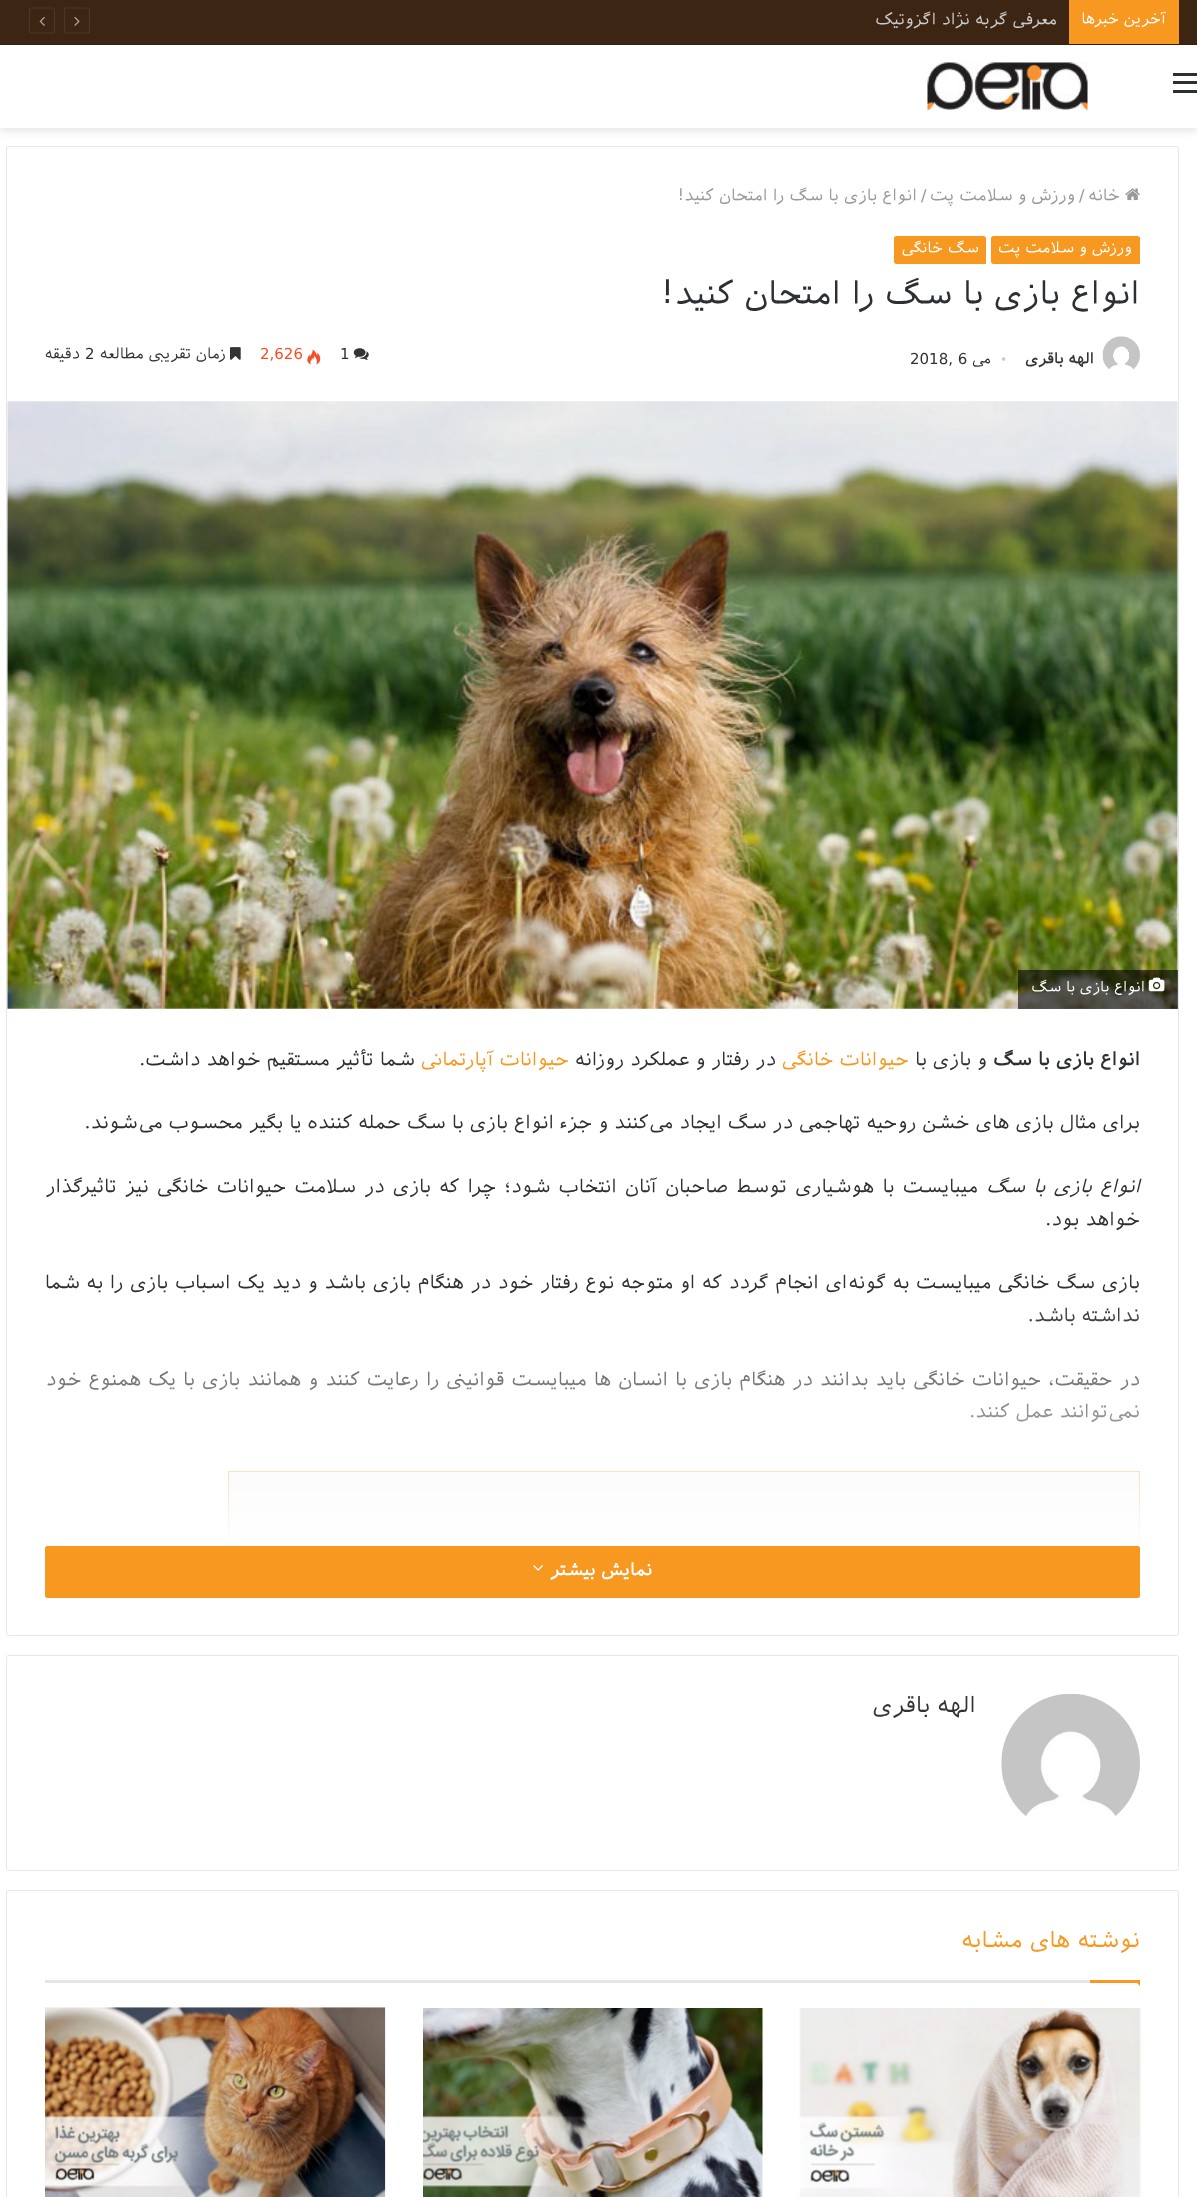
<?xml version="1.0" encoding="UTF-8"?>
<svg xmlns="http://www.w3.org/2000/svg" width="1197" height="2197">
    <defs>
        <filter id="blur1" x="-50%" y="-200%" width="200%" height="500%"><feGaussianBlur stdDeviation="4.5"/></filter>
        <clipPath id="clip1"><rect x="8" y="1046" width="1170" height="500"/></clipPath>
        <linearGradient id="g1" gradientUnits="userSpaceOnUse" x1="593" y1="1046" x2="593" y2="1546"><stop offset="0.5" stop-color="#FFFFFF" stop-opacity="0"/><stop offset="1" stop-color="#FFFFFF"/></linearGradient>
    </defs>
    <rect width="100%" height="100%" fill="#FFFFFF"/>
    <rect x="0" y="49" width="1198" height="82" fill="#000000" fill-opacity="0.1" filter="url(#blur1)"/>
    <rect x="0" y="0" width="1197" height="44" fill="#3C2512"/>
    <rect x="0" y="44" width="1197" height="1" fill="#362110"/>
    <rect x="1069" y="0" width="110" height="44" fill="#F79820"/>
    <text x="1166" y="24" font-family="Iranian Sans" font-size="15" direction="rtl" fill="#FFFFFF">آخرین خبرها</text>
    <text x="1057" y="25" font-family="Iranian Sans" font-size="16.25" direction="rtl" fill="#CCCCCC">معرفی گربه نژاد اگزوتیک</text>
    <path d="M 87.5 33 H 66 C 65 33 64.5 32.5 64.5 31 V 10 C 64.5 9 65 8 66 8 H 87.5 C 88.5 8 89.5 9 89.5 10 V 31 C 89.5 32.5 88.5 33 87.5 33 Z" fill="none" stroke="#4C3625" stroke-width="1.2"/>
    <image x="74" y="16" width="6" height="10" href="img_01.png"/>
    <path d="M 52.5 33 H 31 C 30 33 29.5 32.5 29.5 31 V 10 C 29.5 9 30 8 31 8 H 52.5 C 53.5 8 54.5 9 54.5 10 V 31 C 54.5 32.5 53.5 33 52.5 33 Z" fill="none" stroke="#4C3625" stroke-width="1.2"/>
    <image x="39" y="16" width="6" height="10" href="img_02.png"/>
    <rect x="0" y="45" width="1197" height="83" fill="#FFFFFF"/>
    <rect x="1173" y="81" width="24" height="3" fill="#2C2F34"/>
    <rect x="1173" y="73" width="24" height="3" fill="#2C2F34"/>
    <rect x="1173" y="90" width="24" height="3" fill="#2C2F34"/>
    <image x="927" y="62" width="161" height="48" href="img_03.png"/>
    <rect x="6.5" y="146.5" width="1172" height="1489" rx="2" fill="none" stroke="#E6E6E6"/>
    <image x="1125" y="188" width="15" height="13" href="img_04.png"/>
    <text x="1120" y="201" font-family="Iranian Sans" font-size="16.25" direction="rtl" fill="#999999">خانه</text>
    <text x="1079" y="201" font-family="Iranian Sans" font-size="16.25" fill="#999999">/</text>
    <text x="1075" y="201" font-family="Iranian Sans" font-size="16.25" direction="rtl" fill="#999999">ورزش و سلامت پت</text>
    <text x="921" y="201" font-family="Iranian Sans" font-size="16.25" fill="#999999">/</text>
    <text x="917" y="201" font-family="Iranian Sans" font-size="16.25" direction="rtl" fill="#999999">انواع بازی با سگ را امتحان کنید!</text>
    <path d="M 993.5 236 H 1137.5 C 1139 236 1140 237 1140 238.5 V 264 H 993.5 C 992 264 991 263 991 261.5 V 238.5 C 991 237 992 236 993.5 236 Z" fill="#F79820"/>
    <text x="1132" y="253" font-family="Iranian Sans" font-size="15" direction="rtl" fill="#FFFFFF">ورزش و سلامت پت</text>
    <path d="M 896.5 236 H 983.5 C 985 236 986 237 986 238.5 V 264 H 896.5 C 895 264 894 263 894 261.5 V 238.5 C 894 237 895 236 896.5 236 Z" fill="#F79820"/>
    <text x="979" y="253" font-family="Iranian Sans" font-size="15" direction="rtl" fill="#FFFFFF">سگ خانگی</text>
    <text x="1140" y="305" font-family="Iranian Sans" font-size="32.5" direction="rtl" fill="#2C2F34">انواع بازی با سگ را امتحان کنید!</text>
    <image x="1102" y="336" width="38" height="33" href="img_05.png"/>
    <text x="1094" y="364" font-family="Iranian Sans" font-size="15" font-weight="700" direction="rtl" fill="#333333">الهه باقری</text>
    <text x="1001" y="364" font-family="Liberation Serif" font-size="15" fill="#CCCCCC">•</text>
    <text x="991" y="364" font-family="Iranian Sans" font-size="15" direction="rtl" fill="#333333">می</text>
    <text x="910" y="364" font-family="Iranian Sans" font-size="15" fill="#333333">2018, 6</text>
    <image x="353" y="348" width="16" height="12" href="img_06.png"/>
    <text x="340" y="359" font-family="Iranian Sans" font-size="15" fill="#333333">1</text>
    <image x="307" y="349" width="14" height="16" href="img_07.png"/>
    <text x="260" y="359" font-family="Iranian Sans" font-size="15" fill="#F3502A">2,626</text>
    <image x="230" y="347" width="11" height="13" href="img_08.png"/>
    <text x="226" y="359" font-family="Iranian Sans" font-size="15" direction="rtl" fill="#333333">زمان تقریبی مطالعه</text>
    <text x="85" y="359" font-family="Iranian Sans" font-size="15" fill="#333333">2</text>
    <text x="80" y="359" font-family="Iranian Sans" font-size="15" direction="rtl" fill="#333333">دقیقه</text>
    <image x="7" y="401" width="1171" height="608" href="img_09.png"/>
    <rect x="1018" y="970" width="160" height="39" fill="#000000" fill-opacity="0.6"/>
    <image x="1148" y="977" width="17" height="15" href="img_10.png"/>
    <text x="1145" y="992" font-family="Iranian Sans" font-size="14.5" direction="rtl" fill="#FFFFFF">انواع بازی با سگ</text>
    <text x="1140" y="1066" font-family="Iranian Sans" font-size="18.75" font-weight="700" direction="rtl" fill="#2C2F34">انواع بازی با سگ</text>
    <text x="987" y="1066" font-family="Iranian Sans" font-size="18.75" direction="rtl" fill="#2C2F34">و بازی با</text>
    <text x="909" y="1066" font-family="Iranian Sans" font-size="18.75" direction="rtl" fill="#F79820">حیوانات خانگی</text>
    <text x="776" y="1066" font-family="Iranian Sans" font-size="18.75" direction="rtl" fill="#2C2F34">در رفتار و عملکرد روزانه</text>
    <text x="569" y="1066" font-family="Iranian Sans" font-size="18.75" direction="rtl" fill="#F79820">حیوانات آپارتمانی</text>
    <text x="415" y="1066" font-family="Iranian Sans" font-size="18.75" direction="rtl" fill="#2C2F34">شما تأثیر مستقیم خواهد داشت.</text>
    <text x="1140" y="1129" font-family="Iranian Sans" font-size="18.75" direction="rtl" fill="#2C2F34">برای مثال بازی ‌های خشن روحیه تهاجمی در سگ ایجاد می‌‌کنند و جزء انواع بازی با سگ حمله کننده یا بگیر محسوب می‌شوند.</text>
    <text x="1140" y="1193" word-spacing="2.25" font-family="Iranian Sans" font-size="18.75" font-style="italic" direction="rtl" fill="#2C2F34">انواع بازی با سگ</text>
    <text x="978" y="1193" word-spacing="2.25" font-family="Iranian Sans" font-size="18.75" direction="rtl" fill="#2C2F34">میبایست با هوشیاری توسط صاحبان آنان انتخاب شود؛ چرا که بازی در سلامت حیوانات خانگی نیز تاثیرگذار</text>
    <text x="1140" y="1226" font-family="Iranian Sans" font-size="18.75" direction="rtl" fill="#2C2F34">خواهد بود.</text>
    <text font-family="Iranian Sans" font-size="18.75" direction="rtl" fill="#2C2F34">
        <tspan x="1140" y="1289" word-spacing="0.7">بازی سگ خانگی میبایست به گونه‌ای انجام گردد که او متوجه نوع رفتار خود در هنگام بازی باشد و دید یک اسباب بازی را به شما</tspan>
        <tspan x="1140" y="1322">نداشته باشد.</tspan>
    </text>
    <text font-family="Iranian Sans" font-size="18.75" direction="rtl" fill="#2C2F34">
        <tspan x="1140" y="1386" word-spacing="1">در حقیقت، حیوانات خانگی باید بدانند در هنگام بازی با انسان ‌ها میبایست قوانینی را رعایت کنند و همانند بازی با یک همنوع خود</tspan>
        <tspan x="1140" y="1418">نمی‌توانند عمل کنند.</tspan>
    </text>
    <rect x="229" y="1472" width="910" height="73" fill="#F4F4F4"/>
    <rect x="6.5" y="1655.5" width="1172" height="215" rx="2" fill="none" stroke="#E6E6E6"/>
    <image x="1001" y="1694" width="139" height="122" href="img_12.png"/>
    <g clip-path="url(#clip1)">
        <rect x="228.5" y="1471.5" width="911" height="256" fill="none" stroke="#F79233"/>
    </g>
    <rect x="46" y="1307" width="1094" height="239" fill="url(#g1)"/>
    <rect x="45" y="1546" width="1095" height="52" rx="2.5" fill="#F79820"/>
    <text x="652" y="1576" font-family="Iranian Sans" font-size="17.5" font-weight="700" direction="rtl" fill="#FFFFFF">نمایش بیشتر</text>
    <image x="533" y="1565" width="10" height="6" href="img_11.png"/>
    <text x="976" y="1713" font-family="Iranian Sans" font-size="22.5" direction="rtl" fill="#333333">الهه باقری</text>
    <rect x="6.5" y="1890.5" width="1172" height="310" rx="2" fill="none" stroke="#E6E6E6"/>
    <rect x="45" y="1980" width="1045" height="3" fill="#E6E6E6"/>
    <text x="1140" y="1948" font-family="Iranian Sans" font-size="22.5" direction="rtl" fill="#F79820">نوشته های مشابه</text>
    <path d="M 1134 1980 H 1140 V 1986 Z" fill="#F79820"/>
    <rect x="1090" y="1980" width="50" height="3" fill="#F79820"/>
    <image x="799" y="2008" width="342" height="189" href="img_13.png"/>
    <image x="423" y="2008" width="340" height="189" href="img_14.png"/>
    <image x="45" y="2007" width="341" height="190" href="img_15.png"/>
</svg>
